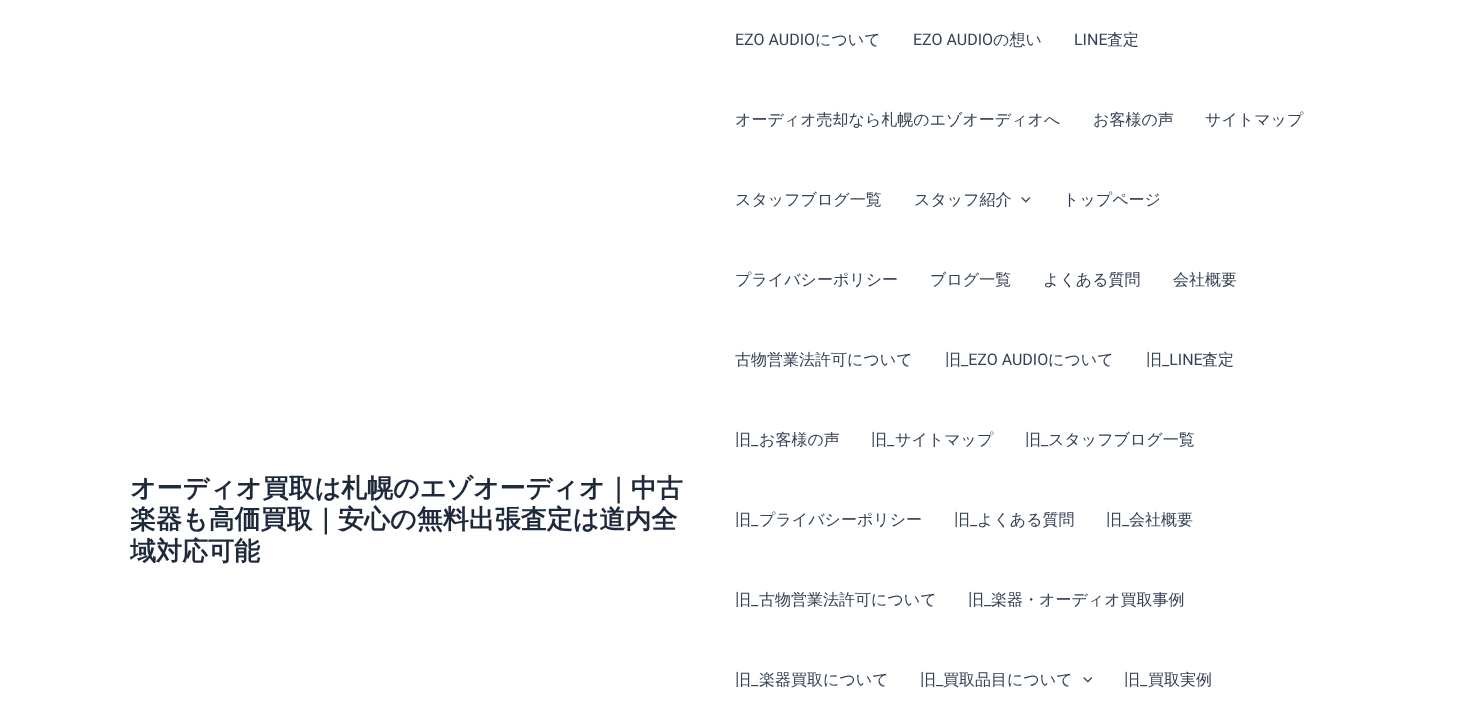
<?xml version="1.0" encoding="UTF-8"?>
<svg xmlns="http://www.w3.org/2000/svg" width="1460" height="721">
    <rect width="100%" height="100%" fill="#FFFFFF"/>
    <text font-family="WenQuanYi Zen Hei" font-size="26" font-weight="700" fill="#1E293B">
        <tspan x="130" y="497">オーディオ買取は札幌のエゾオーディオ｜中古</tspan>
        <tspan x="130" y="528">楽器も高価買取｜安心の無料出張査定は道内全</tspan>
        <tspan x="130" y="560">域対応可能</tspan>
    </text>
    <text x="735" y="45" font-family="Roboto" font-size="16" fill="#334155">EZO AUDIO</text>
    <text x="815" y="45" font-family="WenQuanYi Zen Hei" font-size="16" font-weight="500" fill="#334155">について</text>
    <text x="913" y="45" font-family="Roboto" font-size="16" fill="#334155">EZO AUDIO</text>
    <text x="993" y="45" font-family="WenQuanYi Zen Hei" font-size="16" font-weight="500" fill="#334155">の想い</text>
    <text x="1074" y="45" font-family="Roboto" font-size="16" fill="#334155">LINE</text>
    <text x="1107" y="45" font-family="WenQuanYi Zen Hei" font-size="16" font-weight="500" fill="#334155">査定</text>
    <text x="735" y="125" font-family="WenQuanYi Zen Hei" font-size="16" font-weight="500" fill="#334155">オーディオ売却なら札幌のエゾオーディオへ</text>
    <text x="1093" y="125" font-family="WenQuanYi Zen Hei" font-size="16" font-weight="500" fill="#334155">お客様の声</text>
    <text x="1205" y="125" font-family="WenQuanYi Zen Hei" font-size="16" font-weight="500" fill="#334155">サイトマップ</text>
    <text x="735" y="205" font-family="WenQuanYi Zen Hei" font-size="16" font-weight="500" fill="#334155">スタッフブログ一覧</text>
    <text x="914" y="205" font-family="WenQuanYi Zen Hei" font-size="16" font-weight="500" fill="#334155">スタッフ紹介</text>
    <image x="1021" y="197" width="10" height="6" href="img_01.png"/>
    <text x="1063" y="205" font-family="WenQuanYi Zen Hei" font-size="16" font-weight="500" fill="#334155">トップページ</text>
    <text x="735" y="285" font-family="WenQuanYi Zen Hei" font-size="16" font-weight="500" fill="#334155">プライバシーポリシー</text>
    <text x="930" y="285" font-family="WenQuanYi Zen Hei" font-size="16" font-weight="500" fill="#334155">ブログ一覧</text>
    <text x="1043" y="285" font-family="WenQuanYi Zen Hei" font-size="16" font-weight="500" fill="#334155">よくある質問</text>
    <text x="1173" y="285" font-family="WenQuanYi Zen Hei" font-size="16" font-weight="500" fill="#334155">会社概要</text>
    <text x="735" y="365" font-family="WenQuanYi Zen Hei" font-size="16" font-weight="500" fill="#334155">古物営業法許可について</text>
    <text x="945" y="365" font-family="WenQuanYi Zen Hei" font-size="16" font-weight="500" fill="#334155">旧</text>
    <text x="961" y="365" font-family="Roboto" font-size="16" fill="#334155">_EZO AUDIO</text>
    <text x="1048" y="365" font-family="WenQuanYi Zen Hei" font-size="16" font-weight="500" fill="#334155">について</text>
    <text x="1146" y="365" font-family="WenQuanYi Zen Hei" font-size="16" font-weight="500" fill="#334155">旧</text>
    <text x="1162" y="365" font-family="Roboto" font-size="16" fill="#334155">_LINE</text>
    <text x="1202" y="365" font-family="WenQuanYi Zen Hei" font-size="16" font-weight="500" fill="#334155">査定</text>
    <text x="735" y="445" font-family="WenQuanYi Zen Hei" font-size="16" font-weight="500" fill="#334155">旧</text>
    <text x="751" y="445" font-family="Roboto" font-size="16" fill="#334155">_</text>
    <text x="759" y="445" font-family="WenQuanYi Zen Hei" font-size="16" font-weight="500" fill="#334155">お客様の声</text>
    <text x="871" y="445" font-family="WenQuanYi Zen Hei" font-size="16" font-weight="500" fill="#334155">旧</text>
    <text x="887" y="445" font-family="Roboto" font-size="16" fill="#334155">_</text>
    <text x="895" y="445" font-family="WenQuanYi Zen Hei" font-size="16" font-weight="500" fill="#334155">サイトマップ</text>
    <text x="1025" y="445" font-family="WenQuanYi Zen Hei" font-size="16" font-weight="500" fill="#334155">旧</text>
    <text x="1041" y="445" font-family="Roboto" font-size="16" fill="#334155">_</text>
    <text x="1048" y="445" font-family="WenQuanYi Zen Hei" font-size="16" font-weight="500" fill="#334155">スタッフブログ一覧</text>
    <text x="735" y="525" font-family="WenQuanYi Zen Hei" font-size="16" font-weight="500" fill="#334155">旧</text>
    <text x="751" y="525" font-family="Roboto" font-size="16" fill="#334155">_</text>
    <text x="759" y="525" font-family="WenQuanYi Zen Hei" font-size="16" font-weight="500" fill="#334155">プライバシーポリシー</text>
    <text x="954" y="525" font-family="WenQuanYi Zen Hei" font-size="16" font-weight="500" fill="#334155">旧</text>
    <text x="970" y="525" font-family="Roboto" font-size="16" fill="#334155">_</text>
    <text x="977" y="525" font-family="WenQuanYi Zen Hei" font-size="16" font-weight="500" fill="#334155">よくある質問</text>
    <text x="1106" y="525" font-family="WenQuanYi Zen Hei" font-size="16" font-weight="500" fill="#334155">旧</text>
    <text x="1122" y="525" font-family="Roboto" font-size="16" fill="#334155">_</text>
    <text x="1129" y="525" font-family="WenQuanYi Zen Hei" font-size="16" font-weight="500" fill="#334155">会社概要</text>
    <text x="735" y="605" font-family="WenQuanYi Zen Hei" font-size="16" font-weight="500" fill="#334155">旧</text>
    <text x="751" y="605" font-family="Roboto" font-size="16" fill="#334155">_</text>
    <text x="759" y="605" font-family="WenQuanYi Zen Hei" font-size="16" font-weight="500" fill="#334155">古物営業法許可について</text>
    <text x="968" y="605" font-family="WenQuanYi Zen Hei" font-size="16" font-weight="500" fill="#334155">旧</text>
    <text x="984" y="605" font-family="Roboto" font-size="16" fill="#334155">_</text>
    <text x="991" y="605" font-family="WenQuanYi Zen Hei" font-size="16" font-weight="500" fill="#334155">楽器・オーディオ買取事例</text>
    <text x="735" y="685" font-family="WenQuanYi Zen Hei" font-size="16" font-weight="500" fill="#334155">旧</text>
    <text x="751" y="685" font-family="Roboto" font-size="16" fill="#334155">_</text>
    <text x="759" y="685" font-family="WenQuanYi Zen Hei" font-size="16" font-weight="500" fill="#334155">楽器買取について</text>
    <text x="920" y="685" font-family="WenQuanYi Zen Hei" font-size="16" font-weight="500" fill="#334155">旧</text>
    <text x="936" y="685" font-family="Roboto" font-size="16" fill="#334155">_</text>
    <text x="943" y="685" font-family="WenQuanYi Zen Hei" font-size="16" font-weight="500" fill="#334155">買取品目について</text>
    <image x="1083" y="677" width="9" height="6" href="img_02.png"/>
    <text x="1124" y="685" font-family="WenQuanYi Zen Hei" font-size="16" font-weight="500" fill="#334155">旧</text>
    <text x="1140" y="685" font-family="Roboto" font-size="16" fill="#334155">_</text>
    <text x="1148" y="685" font-family="WenQuanYi Zen Hei" font-size="16" font-weight="500" fill="#334155">買取実例</text>
</svg>
